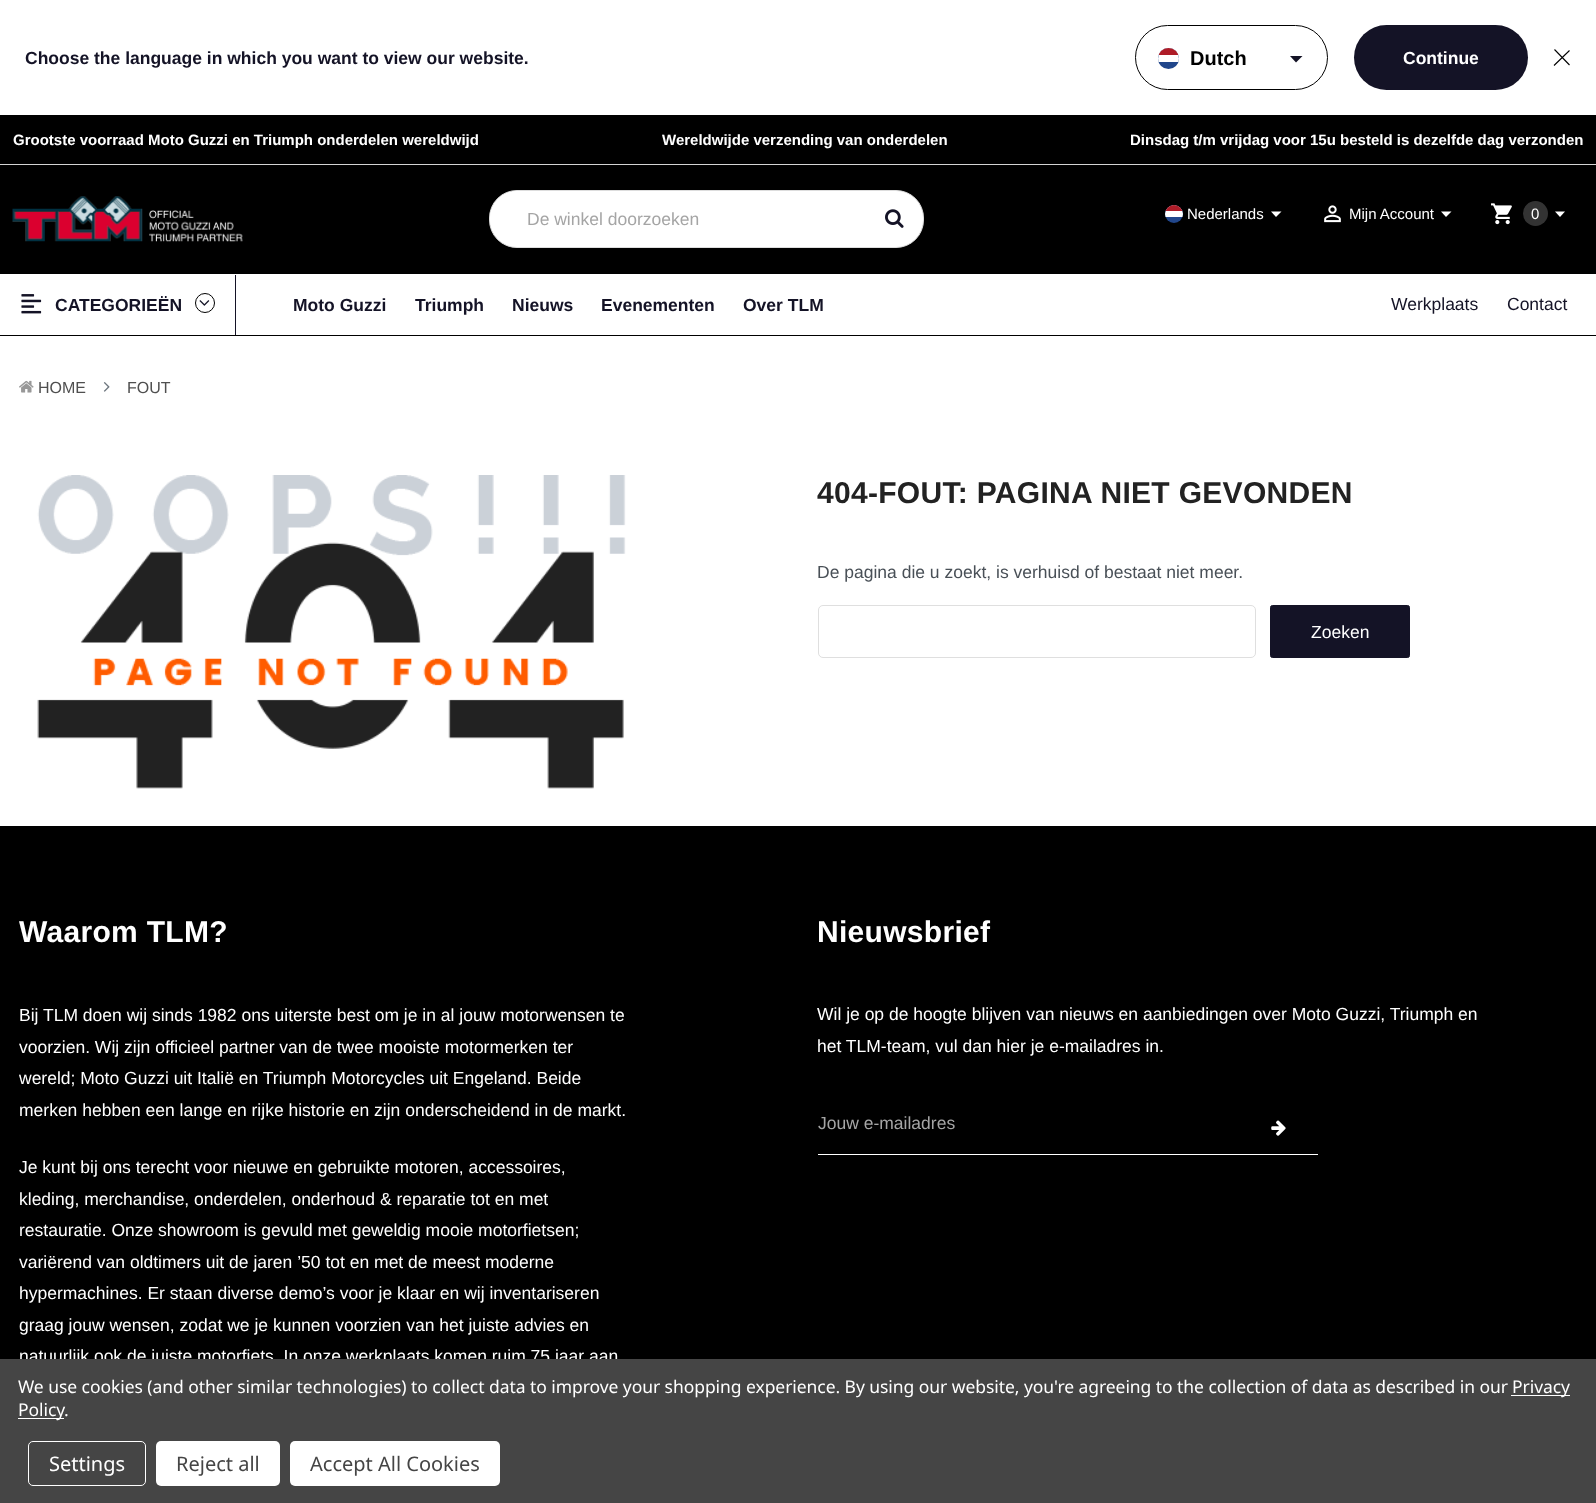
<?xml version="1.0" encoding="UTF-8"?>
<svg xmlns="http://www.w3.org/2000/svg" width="1596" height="1503">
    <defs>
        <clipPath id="clip1"><rect x="1158" y="48" width="21" height="21" rx="10.5"/></clipPath>
        <clipPath id="clip2"><rect x="1165" y="205" width="18" height="18" rx="9"/></clipPath>
    </defs>
    <rect width="100%" height="100%" fill="#FFFFFF"/>
    <text x="25" y="64" font-family="Liberation Sans" font-size="17.5" font-weight="700" fill="#141326">Choose the language in which you want to view our website.</text>
    <rect x="1135.5" y="25.5" width="192" height="64" rx="32" fill="none" stroke="#000000"/>
    <circle cx="1168.5" cy="58.5" r="10.5" fill="#21468B"/>
    <g clip-path="url(#clip1)">
        <path d="M 1168.5 48 C 1174.5 48 1179 52.5 1179 58.5 V 62 H 1158 V 58.5 C 1158 52.5 1162.5 48 1168.5 48 Z" fill="#FFFFFF"/>
        <rect x="1158" y="48" width="21" height="7" fill="#AE1C28"/>
    </g>
    <text x="1190" y="65" font-family="Liberation Sans" font-size="20" font-weight="700" fill="#000000">Dutch</text>
    <path d="M 1290 56 H 1302.5 L 1296 62.5 Z" fill="#141326"/>
    <rect x="1354" y="25" width="174" height="65" rx="32.5" fill="#141326"/>
    <text x="1403" y="64" font-family="Liberation Sans" font-size="17.5" font-weight="700" fill="#FFFFFF">Continue</text>
    <path d="M 1554.5 49.5 L 1569.5 65 M 1569.5 50.5 L 1554 65.5" fill="none" stroke="#000000" stroke-width="1.1"/>
    <rect x="0" y="115" width="1596" height="159" fill="#000000"/>
    <rect x="0" y="164" width="1596" height="1" fill="#D3D3D3"/>
    <text x="13" y="145" font-family="Liberation Sans" font-size="15" font-weight="700" fill="#FFFFFF">Grootste voorraad Moto Guzzi en Triumph onderdelen wereldwijd</text>
    <text x="662" y="145" font-family="Liberation Sans" font-size="15" font-weight="700" fill="#FFFFFF">Wereldwijde verzending van onderdelen</text>
    <text x="1130" y="145" font-family="Liberation Sans" font-size="15" font-weight="700" fill="#FFFFFF">Dinsdag t/m vrijdag voor 15u besteld is dezelfde dag verzonden</text>
    <image x="12" y="196" width="231" height="46" href="img_01.png"/>
    <rect x="489.5" y="190.5" width="434" height="57" rx="27.5" fill="#FFFFFF" stroke="#DDDDDD"/>
    <rect x="490" y="191" width="379" height="55" rx="27.5" fill="#FFFFFF"/>
    <text x="527" y="225" font-family="Liberation Sans" font-size="17.5" fill="#A5A5A5">De winkel doorzoeken</text>
    <image x="885" y="209" width="19" height="19" href="img_02.png"/>
    <circle cx="1174" cy="214" r="9" fill="#21468B"/>
    <g clip-path="url(#clip2)">
        <path d="M 1174 205 C 1179 205 1183 209 1183 214 V 217 H 1165 V 214 C 1165 209 1169 205 1174 205 Z" fill="#FFFFFF"/>
        <rect x="1165" y="205" width="18" height="6" fill="#AE1C28"/>
    </g>
    <text x="1187" y="219" font-family="Liberation Sans" font-size="15" fill="#FFFFFF">Nederlands</text>
    <path d="M 1271 211.5 H 1281.5 L 1276 217 Z" fill="#FFFFFF"/>
    <image x="1324" y="205" width="17" height="18" href="img_03.png"/>
    <text x="1349" y="219" font-family="Liberation Sans" font-size="15" fill="#FFFFFF">Mijn Account</text>
    <path d="M 1441 211.5 H 1451.5 L 1446 217 Z" fill="#FFFFFF"/>
    <image x="1491" y="203" width="21" height="22" href="img_04.png"/>
    <circle cx="1535.5" cy="213.5" r="12.5" fill="#333333"/>
    <text x="1531" y="219" font-family="Liberation Sans" font-size="15" fill="#FFFFFF">0</text>
    <path d="M 1555 211.5 H 1565 L 1560 217 Z" fill="#FFFFFF"/>
    <rect x="0" y="335" width="1596" height="1" fill="#000000"/>
    <rect x="235" y="275" width="1" height="60" fill="#141326"/>
    <image x="21" y="294" width="21" height="20" href="img_05.png"/>
    <text x="55" y="311" font-family="Liberation Sans" font-size="17.5" font-weight="700" fill="#141326">CATEGORIEËN</text>
    <circle cx="205" cy="303" r="9.5" fill="none" stroke="#000000"/>
    <image x="199" y="300" width="11" height="6" href="img_06.png"/>
    <text x="293" y="311" font-family="Liberation Sans" font-size="17.5" font-weight="700" fill="#141326">Moto Guzzi</text>
    <text x="415" y="311" font-family="Liberation Sans" font-size="17.5" font-weight="700" fill="#141326">Triumph</text>
    <text x="512" y="311" font-family="Liberation Sans" font-size="17.5" font-weight="700" fill="#141326">Nieuws</text>
    <text x="601" y="311" font-family="Liberation Sans" font-size="17.5" font-weight="700" fill="#141326">Evenementen</text>
    <text x="743" y="311" font-family="Liberation Sans" font-size="17.5" font-weight="700" fill="#141326">Over TLM</text>
    <text x="1391" y="310" font-family="Liberation Sans" font-size="17.5" fill="#141326">Werkplaats</text>
    <text x="1507" y="310" font-family="Liberation Sans" font-size="17.5" fill="#141326">Contact</text>
    <image x="19" y="380" width="15" height="13" href="img_07.png"/>
    <text x="38" y="393" font-family="Liberation Sans" font-size="16" fill="#4F4F4F">HOME</text>
    <image x="103" y="382" width="7" height="10" href="img_08.png"/>
    <text x="127" y="393" font-family="Liberation Sans" font-size="16" fill="#4F4F4F">FOUT</text>
    <image x="37" y="475" width="589" height="314" href="img_09.png"/>
    <text x="817" y="503" font-family="Liberation Sans" font-size="30" font-weight="700" letter-spacing="0.3" fill="#222222">404-FOUT: PAGINA NIET GEVONDEN</text>
    <text x="817" y="578" font-family="Liberation Sans" font-size="17.5" fill="#495057">De pagina die u zoekt, is verhuisd of bestaat niet meer.</text>
    <rect x="818.5" y="605.5" width="437" height="52" rx="4.5" fill="none" stroke="#DFDFDF"/>
    <rect x="1270.5" y="605.5" width="139" height="52" rx="2" fill="#141326" stroke="#141326"/>
    <text x="1311" y="638" font-family="Liberation Sans" font-size="17.5" fill="#FFFFFF">Zoeken</text>
    <rect x="0" y="826" width="1596" height="533" fill="#000000"/>
    <text x="19" y="942" font-family="Liberation Sans" font-size="30" font-weight="700" letter-spacing="0.3" fill="#FFFFFF">Waarom TLM?</text>
    <text font-family="Liberation Sans" font-size="17.5" fill="#FFFFFF">
        <tspan x="19" y="1021">Bij TLM doen wij sinds 1982 ons uiterste best om je in al jouw motorwensen te</tspan>
        <tspan x="19" y="1053">voorzien. Wij zijn officieel partner van de twee mooiste motormerken ter</tspan>
        <tspan x="19" y="1084">wereld; Moto Guzzi uit Italië en Triumph Motorcycles uit Engeland. Beide</tspan>
        <tspan x="19" y="1116">merken hebben een lange en rijke historie en zijn onderscheidend in de markt.</tspan>
    </text>
    <text font-family="Liberation Sans" font-size="17.5" fill="#FFFFFF">
        <tspan x="19" y="1173">Je kunt bij ons terecht voor nieuwe en gebruikte motoren, accessoires,</tspan>
        <tspan x="19" y="1205">kleding, merchandise, onderdelen, onderhoud &amp; reparatie tot en met</tspan>
        <tspan x="19" y="1236">restauratie. Onze showroom is gevuld met geweldig mooie motorfietsen;</tspan>
        <tspan x="19" y="1268">variërend van oldtimers uit de jaren ’50 tot en met de meest moderne</tspan>
        <tspan x="19" y="1299">hypermachines. Er staan diverse demo’s voor je klaar en wij inventariseren</tspan>
        <tspan x="19" y="1331">graag jouw wensen, zodat we je kunnen voorzien van het juiste advies en</tspan>
        <tspan x="19" y="1362">natuurlijk ook de juiste motorfiets. In onze werkplaats komen ruim 75 jaar aan</tspan>
    </text>
    <text x="817" y="942" font-family="Liberation Sans" font-size="30" font-weight="700" letter-spacing="0.3" fill="#FFFFFF">Nieuwsbrief</text>
    <text font-family="Liberation Sans" font-size="17.5" fill="#FFFFFF">
        <tspan x="817" y="1020">Wil je op de hoogte blijven van nieuws en aanbiedingen over Moto Guzzi, Triumph en</tspan>
        <tspan x="817" y="1052">het TLM-team, vul dan hier je e-mailadres in.</tspan>
    </text>
    <rect x="818" y="1154" width="500" height="1" fill="#FFFFFF"/>
    <text x="818" y="1129" font-family="Liberation Sans" font-size="17.5" fill="#A5A5A5">Jouw e-mailadres</text>
    <image x="1271" y="1120" width="15" height="16" href="img_10.png"/>
    <rect x="0" y="1359" width="1596" height="144" fill="#454545"/>
    <text x="18" y="1393" font-family="Noto Sans" font-size="17.5" letter-spacing="-0.06" fill="#FFFFFF">We use cookies (and other similar technologies) to collect data to improve your shopping experience. By using our website, you're agreeing to the collection of data as described in our</text>
    <rect x="1511" y="1395" width="59" height="1" fill="#FFFFFF"/>
    <text x="1512" y="1393" font-family="Noto Sans" font-size="17.5" letter-spacing="-0.06" fill="#FFFFFF">Privacy</text>
    <rect x="18" y="1418" width="46" height="1" fill="#FFFFFF"/>
    <text x="18" y="1416" font-family="Noto Sans" font-size="17.5" letter-spacing="-0.06" fill="#FFFFFF">Policy</text>
    <text x="64" y="1416" font-family="Noto Sans" font-size="17.5" letter-spacing="-0.06" fill="#FFFFFF">.</text>
    <rect x="28.5" y="1441.5" width="117" height="44" rx="4.5" fill="none" stroke="#FFFFFF"/>
    <text x="49" y="1471" font-family="Noto Sans" font-size="20" fill="#FFFFFF">Settings</text>
    <rect x="156" y="1441" width="124" height="45" rx="5" fill="#FFFFFF"/>
    <text x="176" y="1471" font-family="Noto Sans" font-size="20" fill="#454545">Reject all</text>
    <rect x="290" y="1441" width="210" height="45" rx="5" fill="#FFFFFF"/>
    <text x="310" y="1471" font-family="Noto Sans" font-size="20" fill="#454545">Accept All Cookies</text>
</svg>
